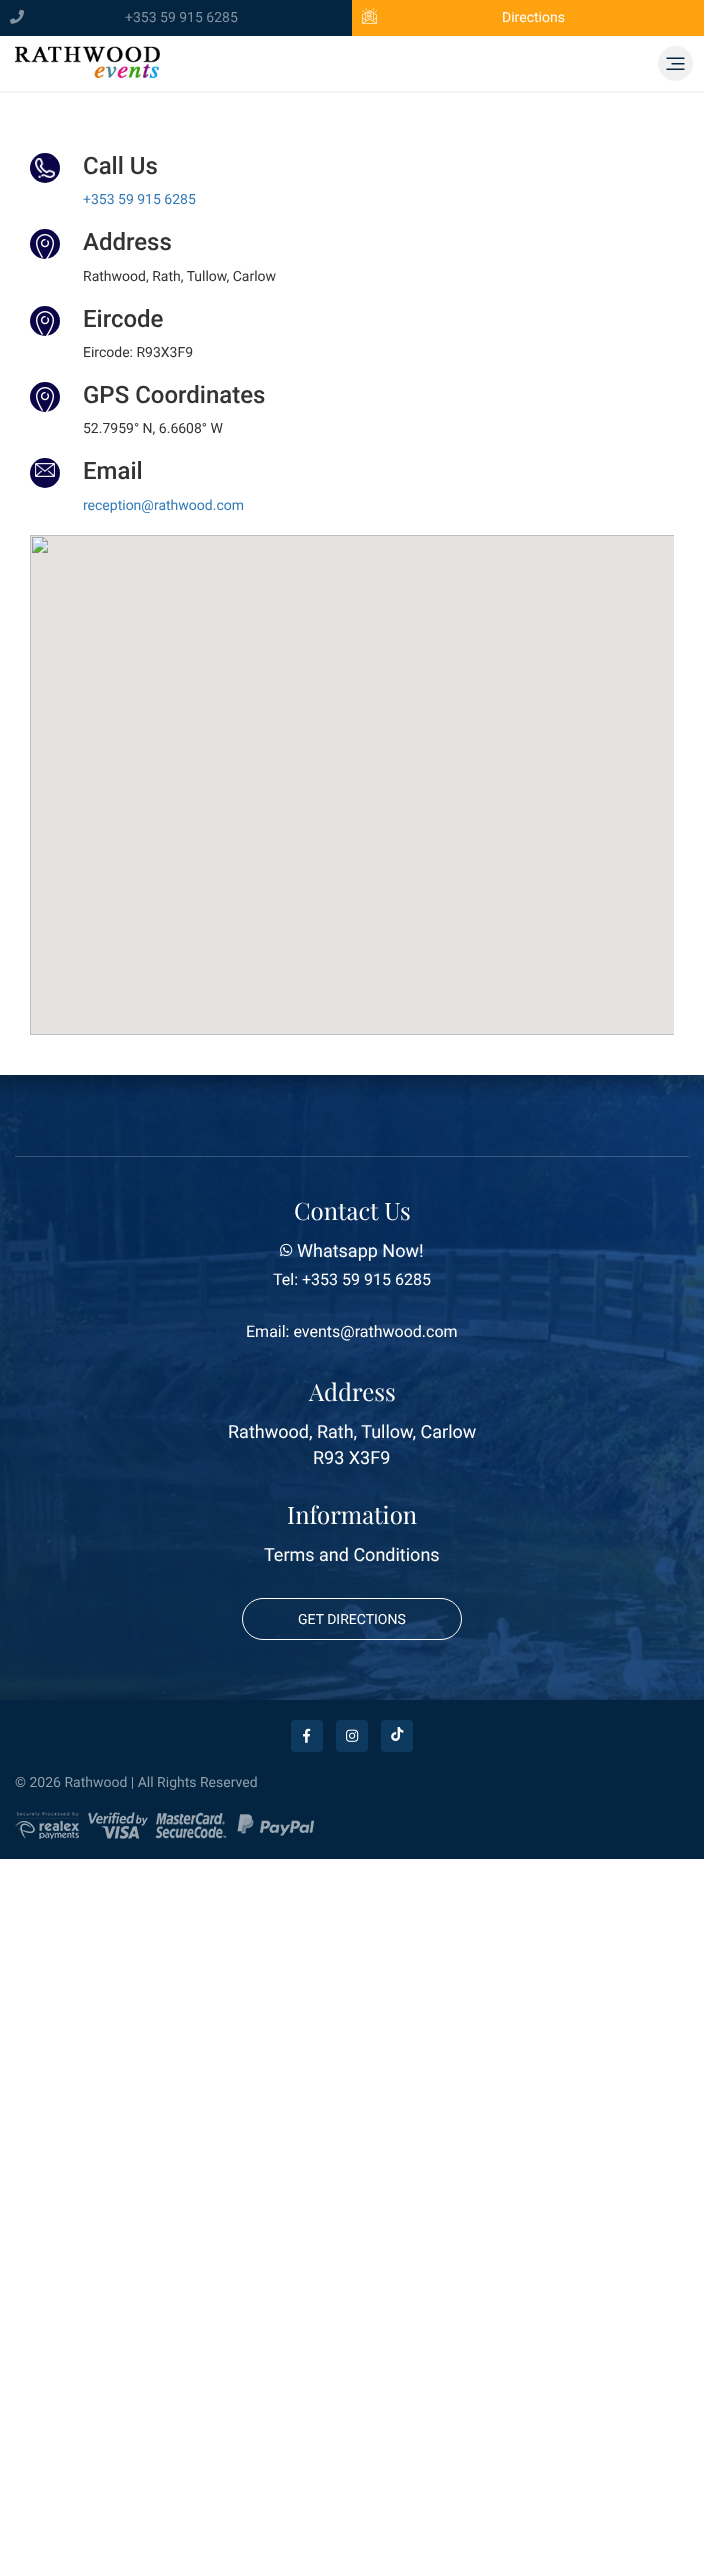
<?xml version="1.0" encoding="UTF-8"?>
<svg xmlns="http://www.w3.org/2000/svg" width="704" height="2552">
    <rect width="100%" height="100%" fill="#FFFFFF"/>
    <rect x="0" y="0" width="352" height="36" fill="#042541"/>
    <image x="10" y="9" width="14" height="15" href="img_01.png"/>
    <text x="125" y="22" font-family="Roboto" font-size="14" fill="#8292A0">+353 59 915 6285</text>
    <rect x="352" y="0" width="352" height="36" fill="#FFA210"/>
    <image x="362" y="8" width="15" height="16" href="img_02.png"/>
    <text x="502" y="22" font-family="Roboto" font-size="14" fill="#FFFFFF">Directions</text>
    <rect x="0" y="91" width="704" height="2" fill="#F4F4F4"/>
    <image x="15" y="46" width="145" height="32" href="img_03.png"/>
    <image x="658" y="46" width="35" height="35" href="img_04.png"/>
    <circle cx="45" cy="168" r="15" fill="#0B0548"/>
    <image x="35" y="158" width="20" height="20" href="img_05.png"/>
    <text x="83" y="174" font-family="Roboto" font-size="24" font-weight="500" fill="#333333">Call Us</text>
    <text x="83" y="204" font-family="Roboto" font-size="14" fill="#337AB7">+353 59 915 6285</text>
    <circle cx="45" cy="244" r="15" fill="#0B0548"/>
    <image x="36" y="234" width="18" height="25" href="img_06.png"/>
    <text x="83" y="250" font-family="Roboto" font-size="24" font-weight="500" fill="#333333">Address</text>
    <text x="83" y="281" font-family="Roboto" font-size="14" fill="#333333">Rathwood, Rath, Tullow, Carlow</text>
    <circle cx="45" cy="321" r="15" fill="#0B0548"/>
    <image x="36" y="311" width="18" height="25" href="img_06.png"/>
    <text x="83" y="327" font-family="Roboto" font-size="24" font-weight="500" fill="#333333">Eircode</text>
    <text x="83" y="357" font-family="Roboto" font-size="14" fill="#333333">Eircode: R93X3F9</text>
    <circle cx="45" cy="397" r="15" fill="#0B0548"/>
    <image x="36" y="387" width="18" height="25" href="img_06.png"/>
    <text x="83" y="403" font-family="Roboto" font-size="24" font-weight="500" fill="#333333">GPS Coordinates</text>
    <text x="83" y="433" font-family="Roboto" font-size="14" fill="#333333">52.7959° N, 6.6608° W</text>
    <circle cx="45" cy="473" r="15" fill="#0B0548"/>
    <image x="35" y="463" width="20" height="14" href="img_07.png"/>
    <text x="83" y="479" font-family="Roboto" font-size="24" font-weight="500" fill="#333333">Email</text>
    <text x="83" y="510" font-family="Roboto" font-size="14" fill="#337AB7">reception@rathwood.com</text>
    <image x="30" y="535" width="644" height="500" href="img_08.png"/>
    <image x="0" y="1075" width="704" height="625" href="img_09.png"/>
    <rect x="15" y="1156" width="674" height="1" fill="#FFFFFF" fill-opacity="0.2"/>
    <text x="294" y="1220" font-family="Playfair Display" font-size="24" fill="#FFFFFF">Contact Us</text>
    <image x="280" y="1243" width="13" height="14" href="img_10.png"/>
    <text x="297" y="1257" font-family="Roboto" font-size="18" fill="#FFFFFF">Whatsapp Now!</text>
    <text x="273" y="1285" font-family="Roboto" font-size="16" fill="#FFFFFF">Tel: +353 59 915 6285</text>
    <text x="246" y="1337" font-family="Roboto" font-size="16" fill="#FFFFFF">Email: events@rathwood.com</text>
    <text x="309" y="1401" font-family="Playfair Display" font-size="24" fill="#FFFFFF">Address</text>
    <text x="228" y="1438" font-family="Roboto" font-size="18" fill="#FFFFFF">Rathwood, Rath, Tullow, Carlow</text>
    <text x="313" y="1464" font-family="Roboto" font-size="18" fill="#FFFFFF">R93 X3F9</text>
    <text x="287" y="1524" font-family="Playfair Display" font-size="24" fill="#FFFFFF">Information</text>
    <text x="264" y="1561" font-family="Roboto" font-size="18" fill="#FFFFFF">Terms and Conditions</text>
    <rect x="242.5" y="1598.5" width="219" height="41" rx="20.5" fill="none" stroke="#FFFFFF"/>
    <text x="298" y="1624" font-family="Roboto" font-size="14" fill="#FFFFFF">GET DIRECTIONS</text>
    <rect x="0" y="1700" width="704" height="159" fill="#042541"/>
    <rect x="291" y="1720" width="32" height="32" rx="4" fill="#0E395E"/>
    <image x="303" y="1728" width="8" height="15" href="img_11.png"/>
    <rect x="336" y="1720" width="32" height="32" rx="4" fill="#0E395E"/>
    <image x="346" y="1729" width="13" height="13" href="img_12.png"/>
    <rect x="381" y="1720" width="32" height="32" rx="4" fill="#0E395E"/>
    <image x="391" y="1727" width="13" height="14" href="img_13.png"/>
    <text x="15" y="1787" font-family="Roboto" font-size="14" fill="#919FAB">© 2026 Rathwood | All Rights Reserved</text>
    <image x="15" y="1812" width="299" height="27" href="img_14.png"/>
</svg>
